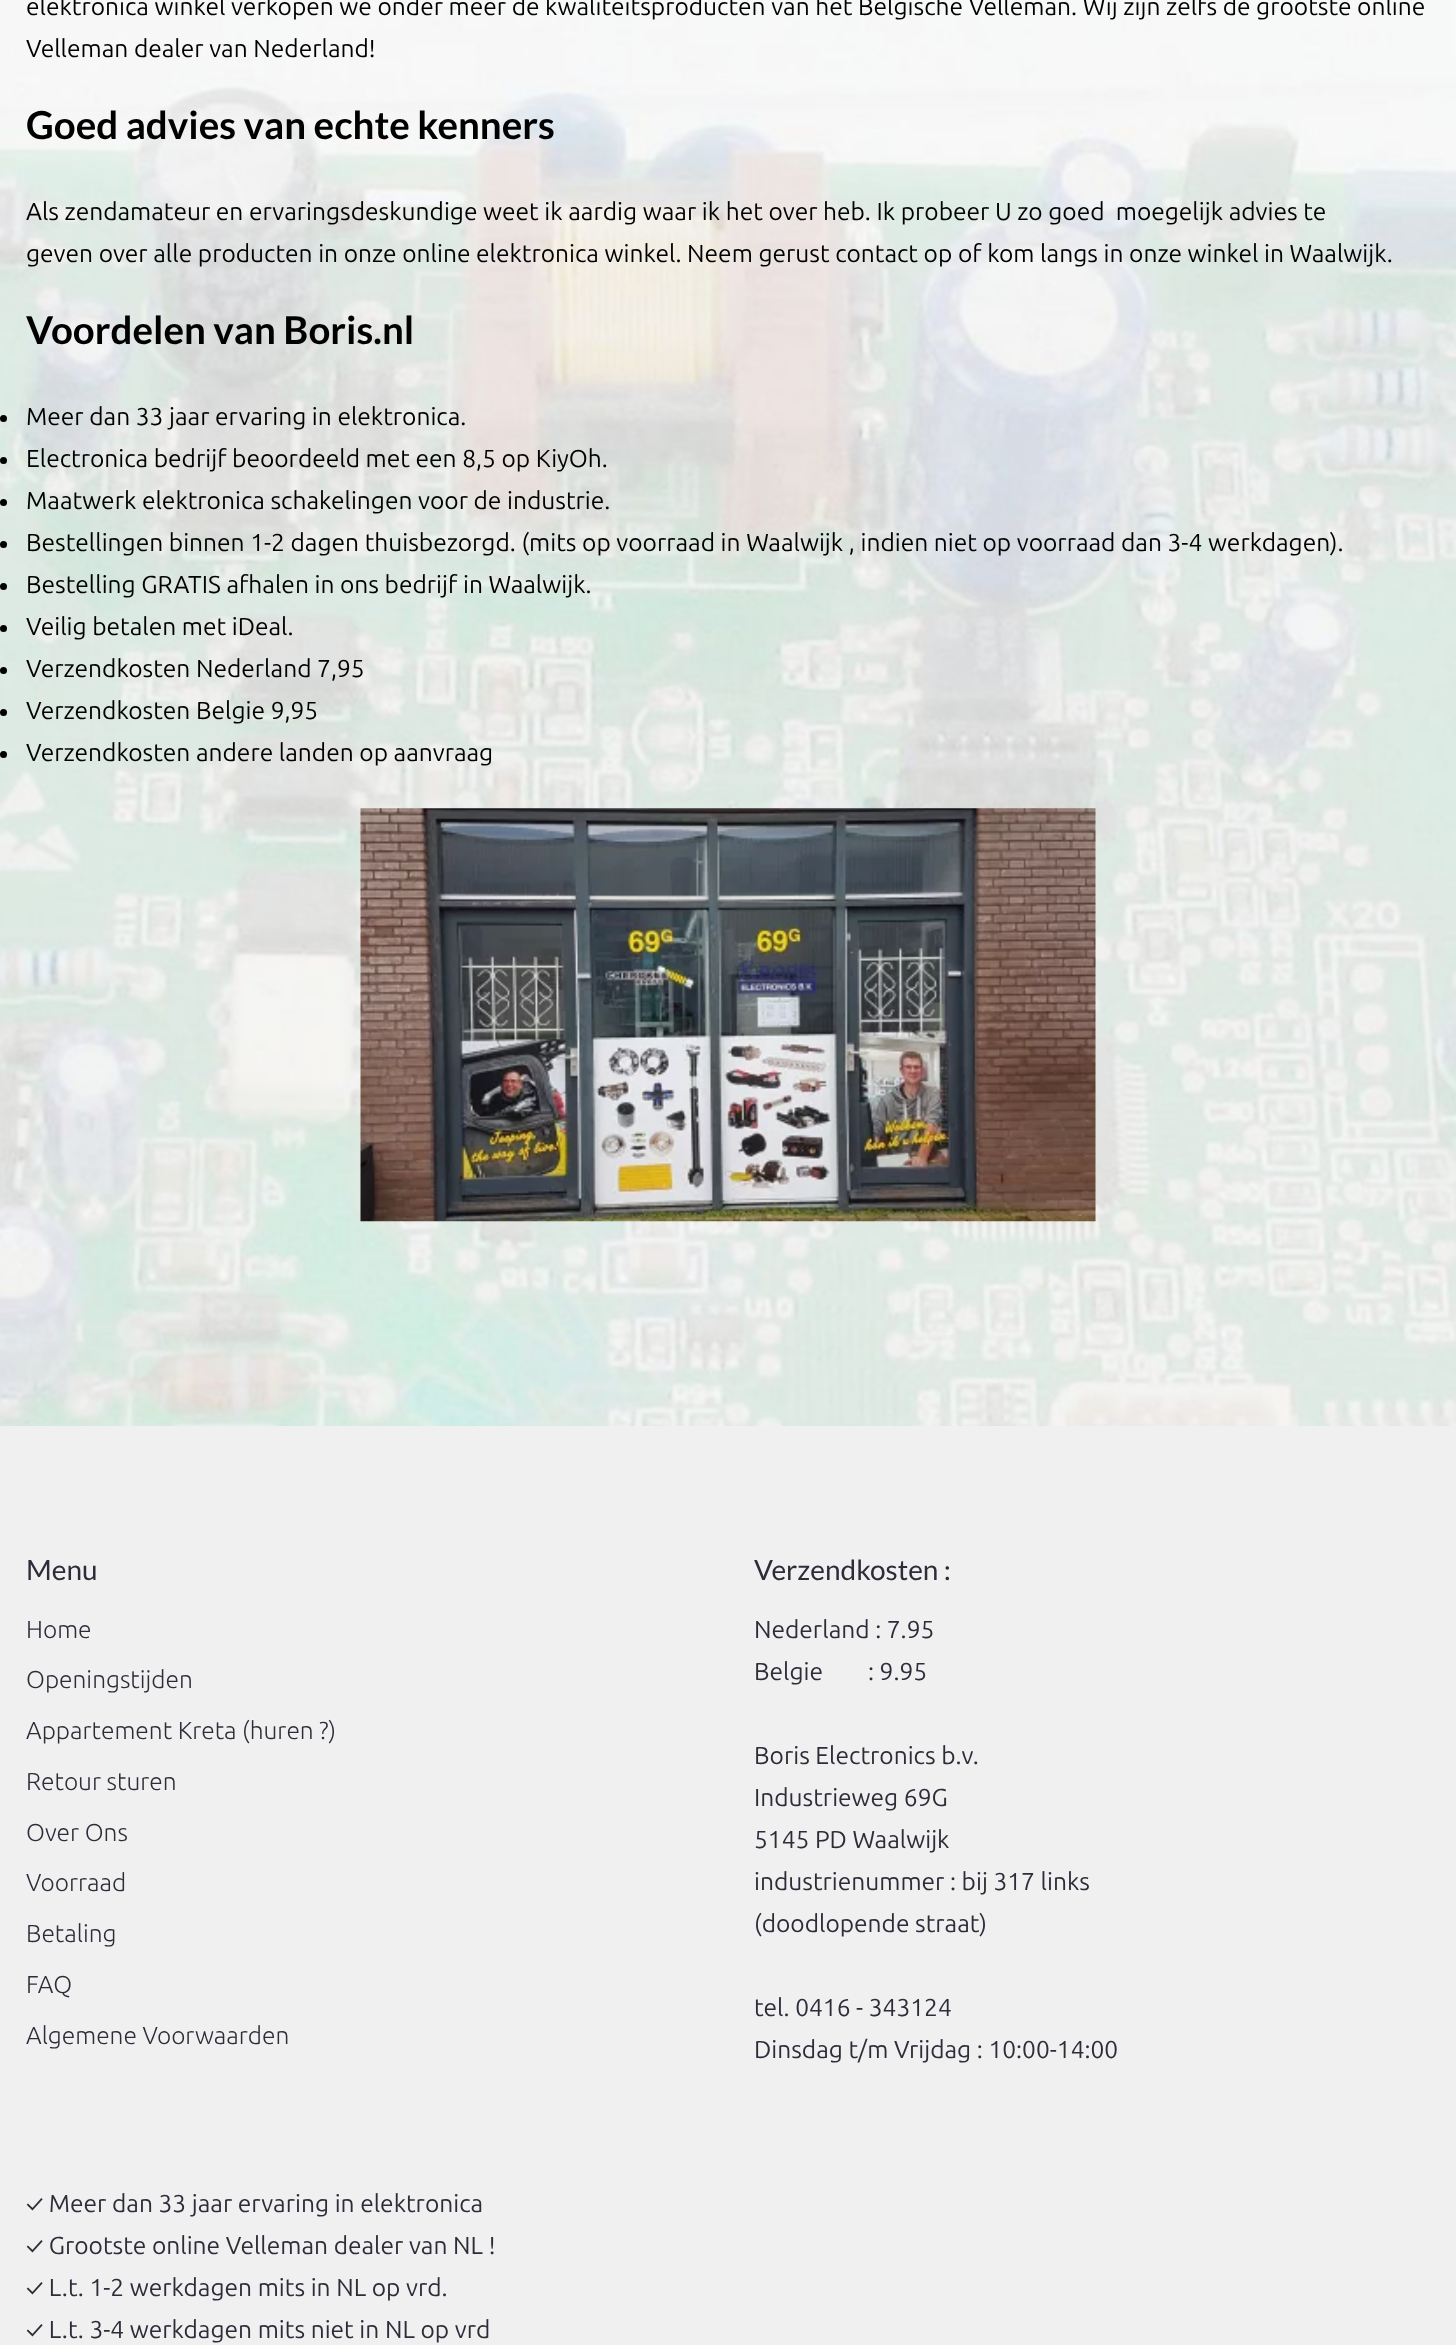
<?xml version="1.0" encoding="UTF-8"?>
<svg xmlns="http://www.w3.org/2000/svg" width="1456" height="2345">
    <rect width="100%" height="100%" fill="#FFFFFF"/>
    <image x="0" y="0" width="1456" height="1426" href="img_01.png"/>
    <text font-family="Ubuntu" font-size="24.5" fill="#000000">
        <tspan x="26" y="15">elektronica winkel verkopen we onder meer de kwaliteitsproducten van het Belgische Velleman. Wij zijn zelfs de grootste online</tspan>
        <tspan x="26" y="57">Velleman dealer van Nederland!</tspan>
    </text>
    <text x="26" y="139" font-family="Lato" font-size="38.5" font-weight="700" fill="#000000">Goed advies van echte kenners</text>
    <text font-family="Ubuntu" font-size="24.5" fill="#000000" xml:space="preserve"><tspan x="26" y="220">Als zendamateur en ervaringsdeskundige weet ik aardig waar ik het over heb. Ik probeer U zo goed  moegelijk advies te</tspan><tspan x="26" y="262">geven over alle producten in onze online elektronica winkel. Neem gerust contact op of kom langs in onze winkel in Waalwijk.</tspan></text>
    <text x="26" y="344" font-family="Lato" font-size="38.5" font-weight="700" fill="#000000">Voordelen van Boris.nl</text>
    <circle cx="3.5" cy="418.5" r="3.5" fill="#000000"/>
    <text x="26" y="425" font-family="Ubuntu" font-size="24.5" fill="#000000">Meer dan 33 jaar ervaring in elektronica.</text>
    <circle cx="3.5" cy="460.5" r="3.5" fill="#000000"/>
    <text x="26" y="467" font-family="Ubuntu" font-size="24.5" fill="#000000">Electronica bedrijf beoordeeld met een 8,5 op KiyOh.</text>
    <circle cx="3.5" cy="502.5" r="3.5" fill="#000000"/>
    <text x="26" y="509" font-family="Ubuntu" font-size="24.5" fill="#000000">Maatwerk elektronica schakelingen voor de industrie.</text>
    <circle cx="3.5" cy="544.5" r="3.5" fill="#000000"/>
    <text x="26" y="551" font-family="Ubuntu" font-size="24.5" fill="#000000">Bestellingen binnen 1-2 dagen thuisbezorgd. (mits op voorraad in Waalwijk , indien niet op voorraad dan 3-4 werkdagen).</text>
    <circle cx="3.5" cy="586.5" r="3.5" fill="#000000"/>
    <text x="26" y="593" font-family="Ubuntu" font-size="24.5" fill="#000000">Bestelling GRATIS afhalen in ons bedrijf in Waalwijk.</text>
    <circle cx="3.5" cy="628.5" r="3.5" fill="#000000"/>
    <text x="26" y="635" font-family="Ubuntu" font-size="24.5" fill="#000000">Veilig betalen met iDeal.</text>
    <circle cx="3.5" cy="670.5" r="3.5" fill="#000000"/>
    <text x="26" y="677" font-family="Ubuntu" font-size="24.5" fill="#000000">Verzendkosten Nederland 7,95</text>
    <circle cx="3.5" cy="712.5" r="3.5" fill="#000000"/>
    <text x="26" y="719" font-family="Ubuntu" font-size="24.5" fill="#000000">Verzendkosten Belgie 9,95</text>
    <circle cx="3.5" cy="754.5" r="3.5" fill="#000000"/>
    <text x="26" y="761" font-family="Ubuntu" font-size="24.5" fill="#000000">Verzendkosten andere landen op aanvraag</text>
    <image x="360" y="808" width="736" height="414" href="img_02.png"/>
    <rect x="0" y="1426" width="1456" height="919" fill="#F0F0F0"/>
    <text x="26" y="1580" font-family="Lato" font-size="28" fill="#2E2C39">Menu</text>
    <text x="26" y="1638" font-family="Ubuntu" font-size="24.5" font-weight="300" fill="#2E2C39">Home</text>
    <text x="26" y="1688" font-family="Ubuntu" font-size="24.5" font-weight="300" fill="#2E2C39">Openingstijden</text>
    <text x="26" y="1739" font-family="Ubuntu" font-size="24.5" font-weight="300" fill="#2E2C39">Appartement Kreta (huren ?)</text>
    <text x="26" y="1790" font-family="Ubuntu" font-size="24.5" font-weight="300" fill="#2E2C39">Retour sturen</text>
    <text x="26" y="1841" font-family="Ubuntu" font-size="24.5" font-weight="300" fill="#2E2C39">Over Ons</text>
    <text x="26" y="1891" font-family="Ubuntu" font-size="24.5" font-weight="300" fill="#2E2C39">Voorraad</text>
    <text x="26" y="1942" font-family="Ubuntu" font-size="24.5" font-weight="300" fill="#2E2C39">Betaling</text>
    <text x="26" y="1993" font-family="Ubuntu" font-size="24.5" font-weight="300" fill="#2E2C39">FAQ</text>
    <text x="26" y="2044" font-family="Ubuntu" font-size="24.5" font-weight="300" fill="#2E2C39">Algemene Voorwaarden</text>
    <text x="754" y="1580" font-family="Lato" font-size="28" fill="#2E2C39">Verzendkosten :</text>
    <text font-family="Ubuntu" font-size="24.5" fill="#2E2C39" xml:space="preserve"><tspan x="754" y="1638">Nederland : 7.95</tspan><tspan x="754" y="1680">Belgie        : 9.95</tspan></text>
    <text font-family="Ubuntu" font-size="24.5" fill="#2E2C39">
        <tspan x="754" y="1764">Boris Electronics b.v.</tspan>
        <tspan x="754" y="1806">Industrieweg 69G</tspan>
        <tspan x="754" y="1848">5145 PD Waalwijk</tspan>
        <tspan x="754" y="1890">industrienummer : bij 317 links</tspan>
        <tspan x="754" y="1932">(doodlopende straat)</tspan>
    </text>
    <text font-family="Ubuntu" font-size="24.5" fill="#2E2C39">
        <tspan x="754" y="2016">tel. 0416 - 343124</tspan>
        <tspan x="754" y="2058">Dinsdag t/m Vrijdag : 10:00-14:00</tspan>
    </text>
    <text font-family="Ubuntu" font-size="24.5" fill="#2E2C39">
        <tspan x="26" y="2212">✓ Meer dan 33 jaar ervaring in elektronica</tspan>
        <tspan x="26" y="2254">✓ Grootste online Velleman dealer van NL !</tspan>
        <tspan x="26" y="2296">✓ L.t. 1-2 werkdagen mits in NL op vrd.</tspan>
        <tspan x="26" y="2338">✓ L.t. 3-4 werkdagen mits niet in NL op vrd</tspan>
    </text>
</svg>
